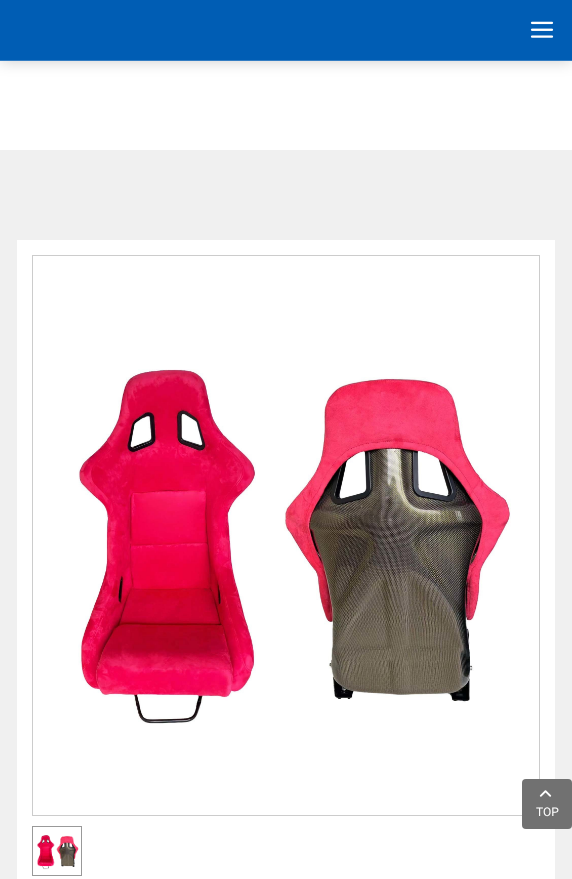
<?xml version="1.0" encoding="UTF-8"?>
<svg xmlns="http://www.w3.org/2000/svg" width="572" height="879">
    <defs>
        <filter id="blur1" x="-50%" y="-200%" width="200%" height="500%"><feGaussianBlur stdDeviation="7.5"/></filter>
    </defs>
    <rect width="100%" height="100%" fill="#FFFFFF"/>
    <rect x="0" y="0" width="572" height="61" fill="#000000" fill-opacity="0.2" filter="url(#blur1)"/>
    <rect x="0" y="0" width="572" height="60" fill="#005DB4"/>
    <rect x="0" y="60" width="572" height="1" fill="#337DC3"/>
    <image x="530" y="21" width="24" height="17" href="img_01.png"/>
    <rect x="0" y="150" width="572" height="729" fill="#F0F0F0"/>
    <rect x="17" y="240" width="538" height="639" fill="#FFFFFF"/>
    <rect x="32.5" y="255.5" width="507" height="560" fill="none" stroke="#CCCCCC"/>
    <image x="78" y="369" width="433" height="355" href="img_02.png"/>
    <image x="37" y="835" width="42" height="35" href="img_03.png"/>
    <rect x="32.5" y="826.5" width="49" height="49" fill="none" stroke="#999999"/>
    <rect x="522" y="779" width="50" height="50" rx="4" fill="#717171"/>
    <image x="539" y="790" width="13" height="7" href="img_04.png"/>
    <text x="536" y="816" font-family="Roboto" font-size="12" fill="#FFFFFF">TOP</text>
</svg>
